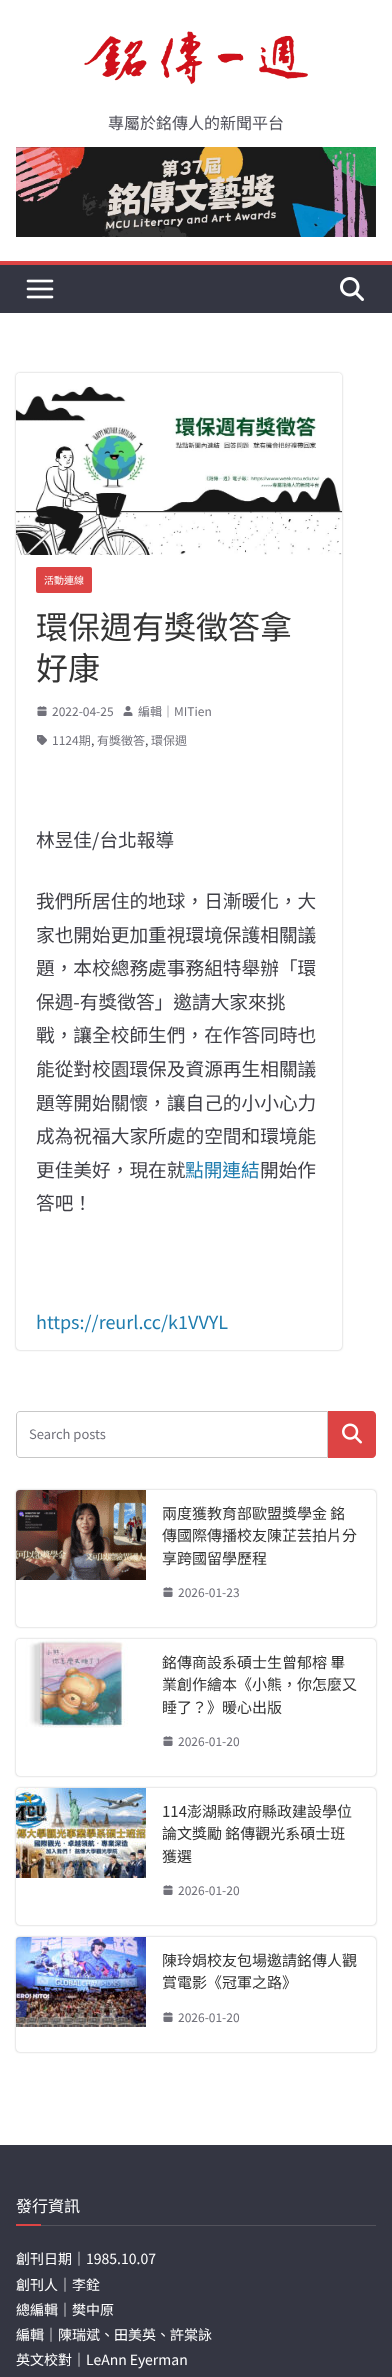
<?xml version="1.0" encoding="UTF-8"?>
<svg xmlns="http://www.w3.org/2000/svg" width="392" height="2377">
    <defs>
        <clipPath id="clip1"><path d="M 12 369 H 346 V 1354 H 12 Z M 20 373 H 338 C 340 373 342 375 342 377 V 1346 C 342 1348 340 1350 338 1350 H 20 C 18 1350 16 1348 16 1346 V 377 C 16 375 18 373 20 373 Z" clip-rule="evenodd"/></clipPath>
        <filter id="blur1" x="-50%" y="-200%" width="200%" height="500%"><feGaussianBlur stdDeviation="1"/></filter>
        <clipPath id="clip2"><path d="M 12 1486 H 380 V 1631 H 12 Z M 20 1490 H 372 C 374 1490 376 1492 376 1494 V 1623 C 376 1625 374 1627 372 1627 H 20 C 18 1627 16 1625 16 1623 V 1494 C 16 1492 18 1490 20 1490 Z" clip-rule="evenodd"/></clipPath>
        <clipPath id="clip3"><path d="M 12 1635 H 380 V 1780 H 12 Z M 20 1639 H 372 C 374 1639 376 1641 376 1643 V 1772 C 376 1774 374 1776 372 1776 H 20 C 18 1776 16 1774 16 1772 V 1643 C 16 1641 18 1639 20 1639 Z" clip-rule="evenodd"/></clipPath>
        <clipPath id="clip4"><path d="M 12 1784 H 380 V 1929 H 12 Z M 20 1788 H 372 C 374 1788 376 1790 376 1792 V 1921 C 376 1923 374 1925 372 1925 H 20 C 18 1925 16 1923 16 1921 V 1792 C 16 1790 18 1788 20 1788 Z" clip-rule="evenodd"/></clipPath>
        <clipPath id="clip5"><path d="M 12 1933 H 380 V 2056 H 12 Z M 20 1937 H 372 C 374 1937 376 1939 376 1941 V 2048 C 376 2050 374 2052 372 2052 H 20 C 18 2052 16 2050 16 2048 V 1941 C 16 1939 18 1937 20 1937 Z" clip-rule="evenodd"/></clipPath>
    </defs>
    <rect width="100%" height="100%" fill="#FFFFFF"/>
    <image x="84" y="31" width="224" height="54" href="img_01.png"/>
    <text x="108" y="129" font-family="Noto Sans TC" font-size="16" fill="#52525B">專屬於銘傳人的新聞平台</text>
    <image x="16" y="147" width="360" height="90" href="img_02.png"/>
    <rect x="0" y="265" width="392" height="48" fill="#343642"/>
    <rect x="0" y="261" width="392" height="4" fill="#DD4444"/>
    <image x="26" y="279" width="28" height="20" href="img_03.png"/>
    <image x="340" y="277" width="24" height="24" href="img_04.png"/>
    <g clip-path="url(#clip1)">
        <rect x="16" y="373" width="326" height="977" rx="4" fill="#000000" fill-opacity="0.24" filter="url(#blur1)"/>
    </g>
    <image x="16" y="373" width="326" height="182" href="img_05.png"/>
    <rect x="36" y="567" width="56" height="26" rx="2" fill="#DD4444"/>
    <text x="44" y="584" font-family="Noto Sans TC" font-size="10" fill="#FFFFFF">活動連線</text>
    <text font-family="Noto Sans TC" font-size="32" fill="#333333">
        <tspan x="36" y="639">環保週有獎徵答拿</tspan>
        <tspan x="36" y="680">好康</tspan>
    </text>
    <image x="37" y="706" width="10" height="10" href="img_06.png"/>
    <text x="52" y="716" font-family="Noto Sans TC" font-size="12" fill="#71717A">2022-04-25</text>
    <image x="123" y="706" width="10" height="10" href="img_07.png"/>
    <text x="138" y="716" font-family="Noto Sans TC" font-size="12" fill="#71717A">編輯｜MITien</text>
    <image x="37" y="735" width="10" height="10" href="img_08.png"/>
    <text x="52" y="745" font-family="Noto Sans TC" font-size="12" fill="#71717A">1124期</text>
    <text x="91" y="745" font-family="Noto Sans TC" font-size="12" fill="#3F3F46">,</text>
    <text x="97" y="745" font-family="Noto Sans TC" font-size="12" fill="#71717A">有獎徵答</text>
    <text x="145" y="745" font-family="Noto Sans TC" font-size="12" fill="#3F3F46">,</text>
    <text x="151" y="745" font-family="Noto Sans TC" font-size="12" fill="#71717A">環保週</text>
    <text x="36" y="847" font-family="Noto Sans TC" font-size="18.7" fill="#3F3F46">林昱佳/台北報導</text>
    <text font-family="Noto Sans TC" font-size="18.7" fill="#3F3F46">
        <tspan x="36" y="908">我們所居住的地球，日漸暖化，大</tspan>
        <tspan x="36" y="942">家也開始更加重視環境保護相關議</tspan>
        <tspan x="36" y="975">題，本校總務處事務組特舉辦「環</tspan>
        <tspan x="36" y="1009">保週-有獎徵答」邀請大家來挑</tspan>
        <tspan x="36" y="1042">戰，讓全校師生們，在作答同時也</tspan>
        <tspan x="36" y="1076">能從對校園環保及資源再生相關議</tspan>
        <tspan x="36" y="1110">題等開始關懷，讓自己的小小心力</tspan>
        <tspan x="36" y="1143">成為祝福大家所處的空間和環境能</tspan>
        <tspan x="36" y="1177">更佳美好，現在就</tspan>
    </text>
    <text x="185" y="1177" font-family="Noto Sans TC" font-size="18.7" fill="#207DAF">點開連結</text>
    <text x="260" y="1177" font-family="Noto Sans TC" font-size="18.7" fill="#3F3F46">開始作</text>
    <text x="36" y="1210" font-family="Noto Sans TC" font-size="18.7" fill="#3F3F46">答吧！</text>
    <text x="36" y="1329" font-family="Noto Sans TC" font-size="18" fill="#207DAF">https://reurl.cc/k1VVYL</text>
    <path d="M 20 1411.5 H 327.5 V 1457.5 H 20 C 18 1457.5 16.5 1456 16.5 1454 V 1415 C 16.5 1413 18 1411.5 20 1411.5 Z" fill="none" stroke="#C7C7C7"/>
    <text x="29" y="1439" font-family="Noto Sans TC" font-size="13" fill="#71717A">Search posts</text>
    <path d="M 328 1411 H 372 C 374 1411 376 1413 376 1415 V 1454 C 376 1456 374 1458 372 1458 H 328 Z" fill="#DD4444"/>
    <image x="342" y="1423" width="20" height="21" href="img_09.png"/>
    <g clip-path="url(#clip2)">
        <rect x="16" y="1490" width="360" height="137" rx="4" fill="#000000" fill-opacity="0.24" filter="url(#blur1)"/>
    </g>
    <image x="16" y="1490" width="130" height="90" href="img_10.png"/>
    <text font-family="Noto Sans TC" font-size="15" fill="#333333">
        <tspan x="162" y="1519">兩度獲教育部歐盟獎學金 銘</tspan>
        <tspan x="162" y="1541">傳國際傳播校友陳芷芸拍片分</tspan>
        <tspan x="162" y="1564">享跨國留學歷程</tspan>
    </text>
    <image x="163" y="1587" width="10" height="10" href="img_06.png"/>
    <text x="178" y="1597" font-family="Noto Sans TC" font-size="12" fill="#71717A">2026-01-23</text>
    <g clip-path="url(#clip3)">
        <rect x="16" y="1639" width="360" height="137" rx="4" fill="#000000" fill-opacity="0.24" filter="url(#blur1)"/>
    </g>
    <image x="16" y="1639" width="112" height="89" href="img_11.png"/>
    <text font-family="Noto Sans TC" font-size="15" fill="#333333">
        <tspan x="162" y="1668">銘傳商設系碩士生曾郁榕 畢</tspan>
        <tspan x="162" y="1690">業創作繪本《小熊，你怎麼又</tspan>
        <tspan x="162" y="1713">睡了？》暖心出版</tspan>
    </text>
    <image x="163" y="1736" width="10" height="10" href="img_06.png"/>
    <text x="178" y="1746" font-family="Noto Sans TC" font-size="12" fill="#71717A">2026-01-20</text>
    <g clip-path="url(#clip4)">
        <rect x="16" y="1788" width="360" height="137" rx="4" fill="#000000" fill-opacity="0.24" filter="url(#blur1)"/>
    </g>
    <image x="16" y="1788" width="130" height="90" href="img_12.png"/>
    <text font-family="Noto Sans TC" font-size="15" fill="#333333">
        <tspan x="162" y="1817">114澎湖縣政府縣政建設學位</tspan>
        <tspan x="162" y="1839">論文獎勵 銘傳觀光系碩士班</tspan>
        <tspan x="162" y="1862">獲選</tspan>
    </text>
    <image x="163" y="1885" width="10" height="10" href="img_06.png"/>
    <text x="178" y="1895" font-family="Noto Sans TC" font-size="12" fill="#71717A">2026-01-20</text>
    <g clip-path="url(#clip5)">
        <rect x="16" y="1937" width="360" height="115" rx="4" fill="#000000" fill-opacity="0.24" filter="url(#blur1)"/>
    </g>
    <image x="16" y="1937" width="130" height="90" href="img_13.png"/>
    <text font-family="Noto Sans TC" font-size="15" fill="#333333">
        <tspan x="162" y="1966">陳玲娟校友包場邀請銘傳人觀</tspan>
        <tspan x="162" y="1988">賞電影《冠軍之路》</tspan>
    </text>
    <image x="163" y="2012" width="10" height="10" href="img_06.png"/>
    <text x="178" y="2022" font-family="Noto Sans TC" font-size="12" fill="#71717A">2026-01-20</text>
    <rect x="0" y="2145" width="392" height="232" fill="#343642"/>
    <rect x="41" y="2225" width="335" height="1" fill="#52525B"/>
    <text x="16" y="2212" font-family="Noto Sans TC" font-size="16" fill="#FFFFFF">發行資訊</text>
    <rect x="16" y="2224" width="25" height="2" fill="#DD4444"/>
    <text font-family="Noto Sans TC" font-size="14" fill="#FFFFFF">
        <tspan x="16" y="2264">創刊日期｜1985.10.07</tspan>
        <tspan x="16" y="2290">創刊人｜李銓</tspan>
        <tspan x="16" y="2315">總編輯｜樊中原</tspan>
        <tspan x="16" y="2340">編輯｜陳瑞斌、田美英、許棠詠</tspan>
        <tspan x="16" y="2365">英文校對｜LeAnn Eyerman</tspan>
    </text>
</svg>
